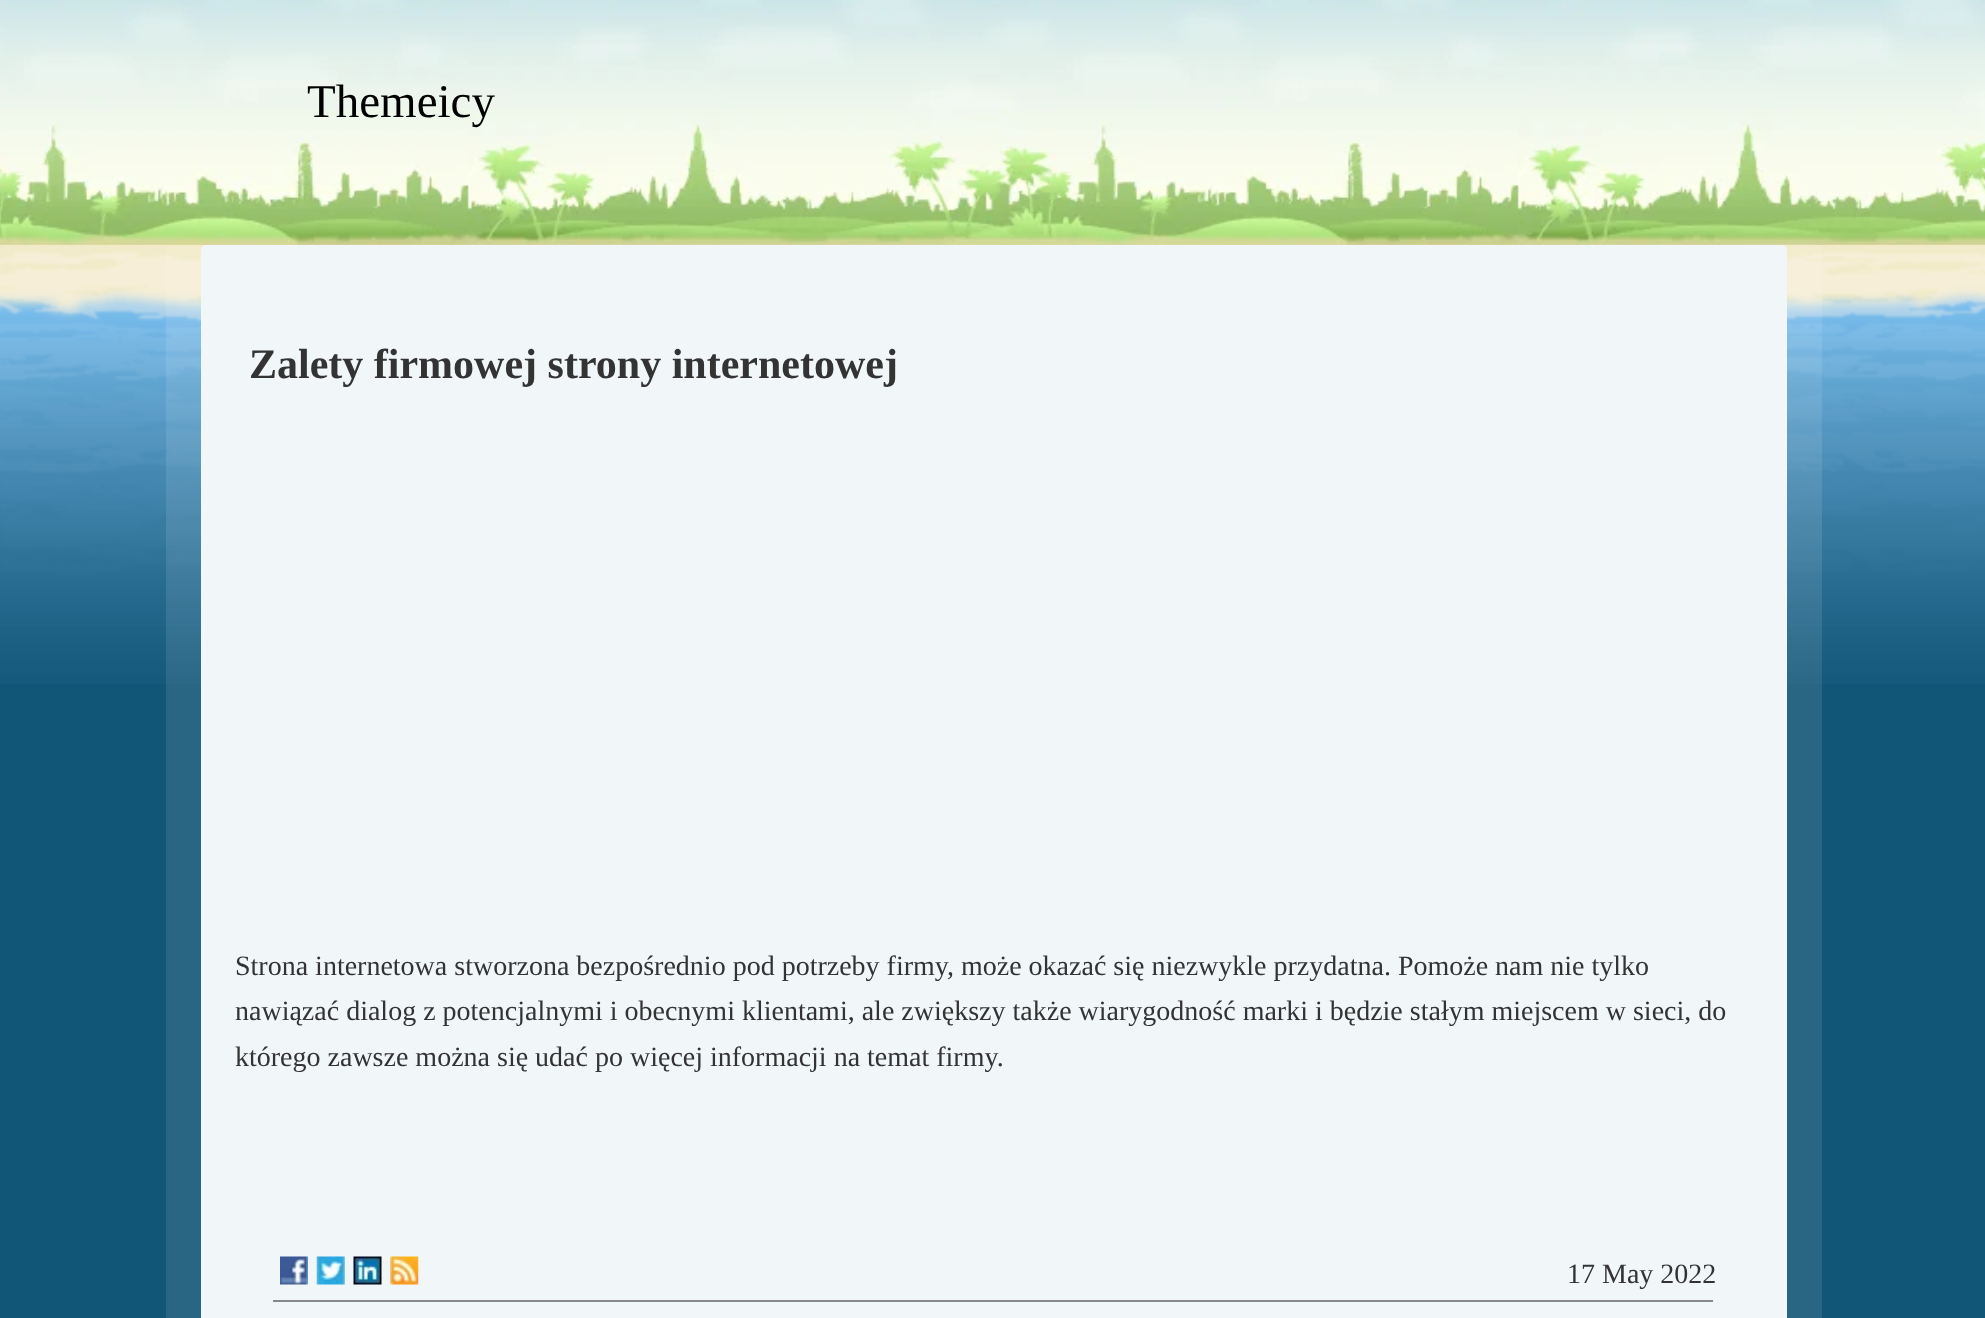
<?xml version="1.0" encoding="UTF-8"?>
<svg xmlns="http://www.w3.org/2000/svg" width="1985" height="1318">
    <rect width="100%" height="100%" fill="#FFFFFF"/>
    <image x="0" y="0" width="1985" height="245" href="img_01.png"/>
    <text x="307" y="117" font-family="Liberation Serif" font-size="47" fill="#000000">Themeicy</text>
    <rect x="0" y="684" width="1985" height="634" fill="#115577"/>
    <image x="0" y="245" width="1985" height="439" href="img_02.png"/>
    <rect x="166" y="245" width="1656" height="1073" fill="#FFFFFF" fill-opacity="0.1"/>
    <rect x="201" y="245" width="1586" height="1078" rx="5" fill="#F1F6F9"/>
    <text x="249" y="378" font-family="Liberation Serif" font-size="42" font-weight="700" fill="#333333">Zalety firmowej strony internetowej</text>
    <text font-family="Liberation Serif" font-size="28" fill="#333333">
        <tspan x="235" y="975">Strona internetowa stworzona bezpośrednio pod potrzeby firmy, może okazać się niezwykle przydatna. Pomoże nam nie tylko</tspan>
        <tspan x="235" y="1020">nawiązać dialog z potencjalnymi i obecnymi klientami, ale zwiększy także wiarygodność marki i będzie stałym miejscem w sieci, do</tspan>
        <tspan x="235" y="1066">którego zawsze można się udać po więcej informacji na temat firmy.</tspan>
    </text>
    <image x="280" y="1256" width="28" height="29" href="img_03.png"/>
    <image x="316" y="1256" width="29" height="29" href="img_04.png"/>
    <image x="353" y="1256" width="29" height="29" href="img_05.png"/>
    <image x="390" y="1256" width="29" height="29" href="img_06.png"/>
    <text x="1567" y="1283" font-family="Liberation Serif" font-size="28" fill="#333333">17 May 2022</text>
    <rect x="273" y="1300" width="1440" height="2" fill="#888888"/>
</svg>
